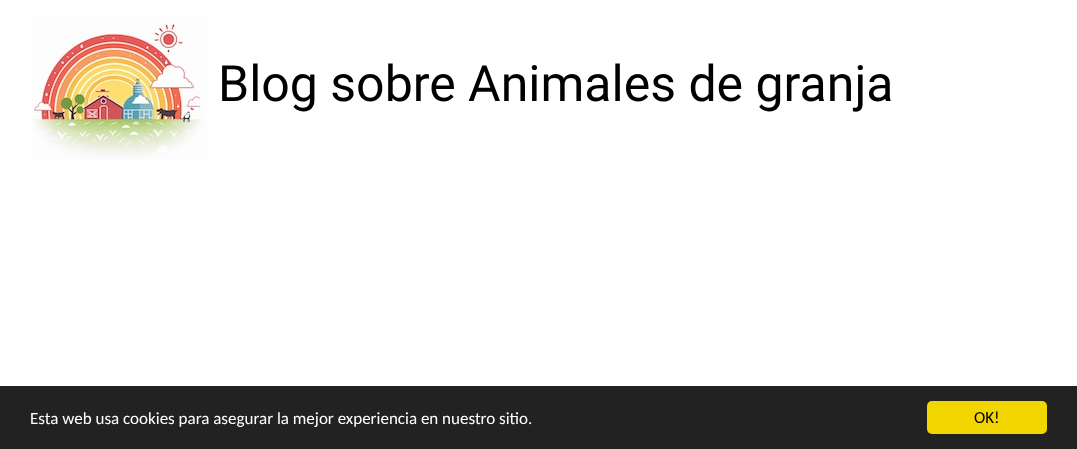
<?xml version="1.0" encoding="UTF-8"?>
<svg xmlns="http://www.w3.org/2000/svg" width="1077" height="449">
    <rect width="100%" height="100%" fill="#FFFFFF"/>
    <image x="31" y="16" width="176" height="144" href="img_01.png"/>
    <text x="218" y="101" font-family="Roboto" font-size="50" fill="#000000">Blog sobre Animales de granja</text>
    <rect x="0" y="386" width="1077" height="63" fill="#222222"/>
    <text x="30" y="424" font-family="Carlito" font-size="17" fill="#FFFFFF">Esta web usa cookies para asegurar la mejor experiencia en nuestro sitio.</text>
    <rect x="927" y="401" width="120" height="33" rx="5" fill="#F1D600"/>
    <text x="974" y="423" font-family="Carlito" font-size="17" fill="#000000">OK!</text>
</svg>
